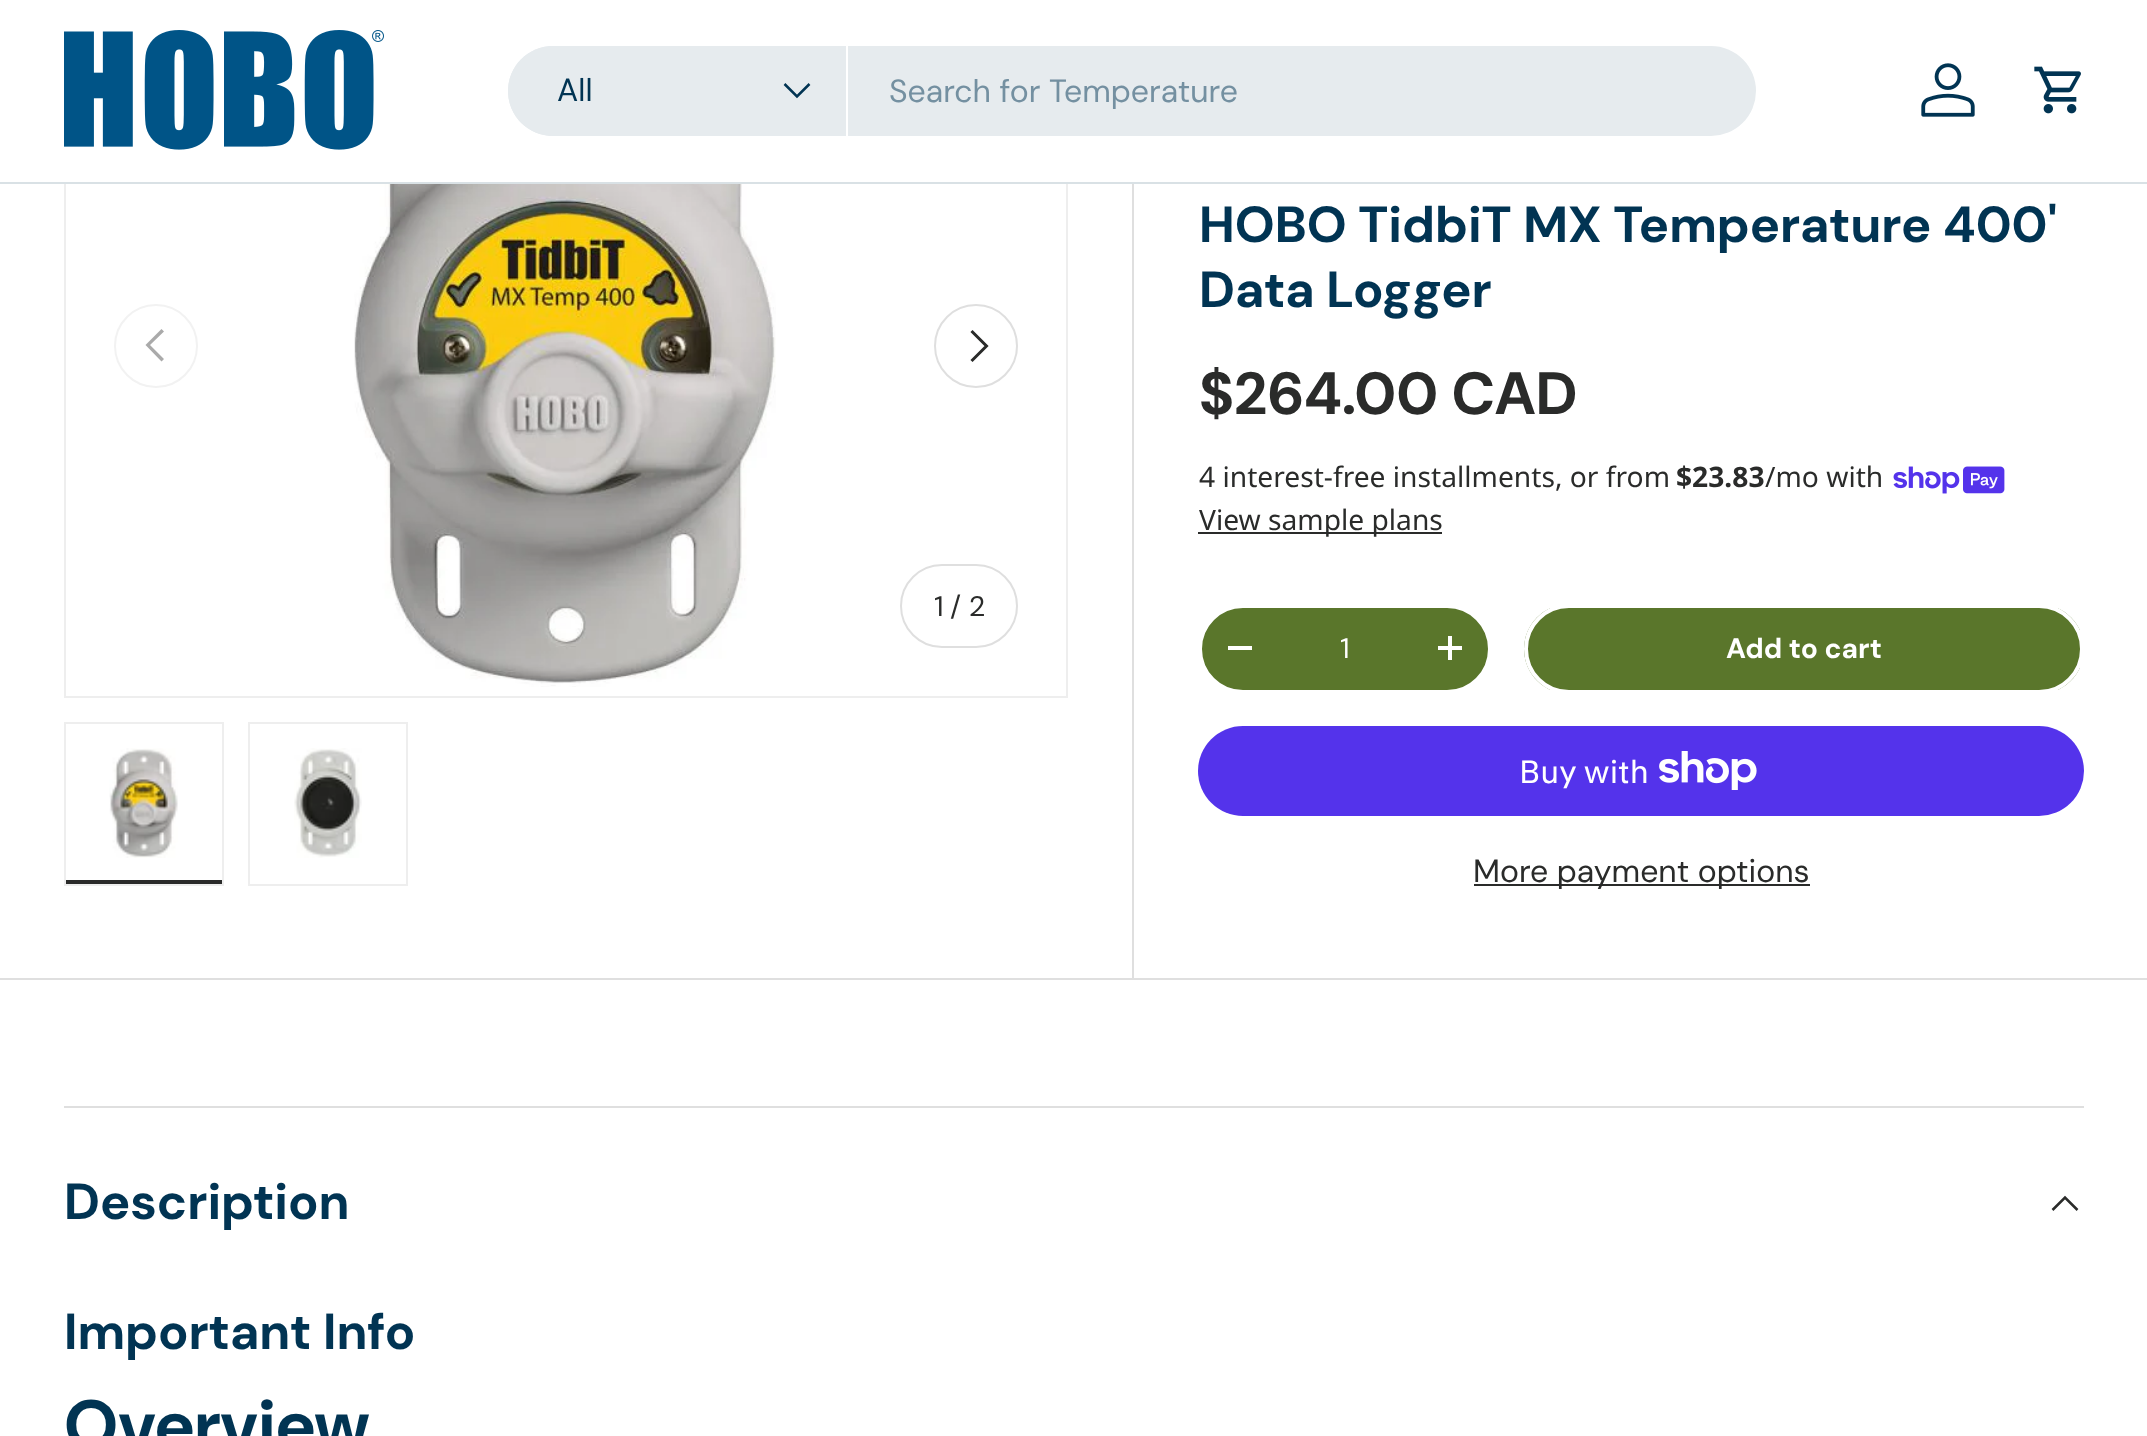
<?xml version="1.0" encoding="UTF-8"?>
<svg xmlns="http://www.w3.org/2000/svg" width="2147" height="1436">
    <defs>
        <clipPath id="clip1"><rect x="1524" y="604" width="560" height="90" rx="45"/></clipPath>
        <linearGradient id="g1" gradientUnits="userSpaceOnUse" x1="463" y1="452" x2="2041" y2="846"><stop offset="0.6" stop-color="#FFFFFF" stop-opacity="0.07"/><stop offset="0.6" stop-color="#5A762B"/><stop offset="1" stop-color="#5A762B"/></linearGradient>
    </defs>
    <rect width="100%" height="100%" fill="#FFFFFF"/>
    <rect x="65" y="-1" width="1002" height="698" fill="none" stroke="#EEEEEE" stroke-width="2"/>
    <rect x="64" y="0" width="1004" height="182" fill="#FFFFFF"/>
    <rect x="0" y="182" width="2147" height="2" fill="#D9E1E5"/>
    <image x="64" y="30" width="320" height="120" href="img_01.png"/>
    <rect x="508" y="46" width="1248" height="90" rx="45" fill="#E6EBEE"/>
    <path d="M 553 46 H 848 V 136 H 553 C 528 136 508 116 508 91 C 508 66 528 46 553 46 Z" fill="#E6EBEE"/>
    <rect x="846" y="46" width="2" height="90" fill="#FFFFFF"/>
    <text x="557" y="101" font-family="'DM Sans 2'" font-size="32" fill="#013453">All</text>
    <path d="M 809.5 84 L 797 96.5 L 784.5 84" fill="none" stroke="#013453" stroke-width="2.5"/>
    <text x="889" y="102" font-family="'DM Sans 2'" font-size="32" fill="#7490A1">Search for Temperature</text>
    <image x="1921" y="63" width="54" height="54" href="img_02.png"/>
    <image x="2034" y="66" width="47" height="48" href="img_03.png"/>
    <image x="354" y="184" width="422" height="503" href="img_04.png"/>
    <circle cx="156" cy="346" r="41" fill="none" stroke="#F2F2F2" stroke-width="2"/>
    <path d="M 145.5 345 L 161.5 329 L 164 331.5 L 150 345 L 164 359 L 161.5 361.5 Z" fill="#AAAAAA"/>
    <circle cx="976" cy="346" r="41" fill="none" stroke="#DFDFDF" stroke-width="2"/>
    <path d="M 971.5 331 L 986.5 346 L 971.5 361" fill="none" stroke="#2A2B2A" stroke-width="3"/>
    <rect x="901" y="565" width="116" height="82" rx="41" fill="none" stroke="#DFDFDF" stroke-width="2"/>
    <text x="934" y="616" font-family="DM Sans" font-size="28.2" fill="#2A2B2A">1</text>
    <text x="950" y="616" font-family="DM Sans" font-size="28.2" fill="#2A2B2A">/ 2</text>
    <rect x="65" y="723" width="158" height="162" fill="none" stroke="#EEEEEE" stroke-width="2"/>
    <image x="109" y="748" width="69" height="110" href="img_05.png"/>
    <rect x="66" y="880" width="156" height="4" fill="#2A2B2A"/>
    <rect x="249" y="723" width="158" height="162" fill="none" stroke="#EEEEEE" stroke-width="2"/>
    <image x="294" y="748" width="68" height="110" href="img_06.png"/>
    <rect x="0" y="978" width="2147" height="2" fill="#DFDFDF"/>
    <rect x="1132" y="184" width="2" height="796" fill="#DFDFDF"/>
    <text font-family="DM Sans" font-size="50.6" font-weight="700" fill="#013453">
        <tspan x="1199" y="242">HOBO TidbiT MX Temperature 400'</tspan>
        <tspan x="1199" y="307">Data Logger</tspan>
    </text>
    <text x="1199" y="414" font-family="'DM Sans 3'" font-size="59.5" font-weight="700" fill="#2A2B2A">$264.00 CAD</text>
    <text x="1199" y="487" font-family="Noto Sans" font-size="28.2" fill="#2A2B2A">4 interest-free installments, or from</text>
    <text x="1676" y="487" font-family="Noto Sans" font-size="28.2" font-weight="700" fill="#2A2B2A">$23.83</text>
    <text x="1765" y="487" font-family="Noto Sans" font-size="28.2" fill="#2A2B2A">/mo with</text>
    <image x="1893" y="466" width="112" height="28" href="img_07.png"/>
    <rect x="1198" y="532" width="244" height="2" fill="#2A2B2A"/>
    <text x="1199" y="530" font-family="Noto Sans" font-size="28.2" fill="#2A2B2A">View sample plans</text>
    <rect x="1200" y="606" width="290" height="86" rx="43" fill="#5A762B" stroke="#FFFFFF" stroke-width="4"/>
    <rect x="1228" y="646" width="24" height="4" fill="#FFFFFF"/>
    <text x="1340" y="658" font-family="DM Sans" font-size="28.2" fill="#FFFFFF">1</text>
    <rect x="1438" y="646" width="24" height="4" fill="#FFFFFF"/>
    <rect x="1448" y="636" width="4" height="24" fill="#FFFFFF"/>
    <g clip-path="url(#clip1)">
        <rect x="1524" y="608" width="556" height="82" fill="url(#g1)"/>
    </g>
    <rect x="1526" y="606" width="556" height="86" rx="43" fill="none" stroke="#FFFFFF" stroke-width="4"/>
    <text x="1726" y="658" font-family="'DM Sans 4'" font-size="28.2" font-weight="700" fill="#FFFFFF">Add to cart</text>
    <rect x="1198" y="726" width="886" height="90" rx="45" fill="#5433EB"/>
    <text x="1519" y="783" font-family="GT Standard" font-size="32" fill="#FFFFFF">Buy with</text>
    <image x="1659" y="751" width="98" height="39" href="img_08.png"/>
    <rect x="1474" y="884" width="336" height="2" fill="#2A2B2A"/>
    <text x="1473" y="882" font-family="'DM Sans 2'" font-size="32" fill="#2A2B2A">More payment options</text>
    <rect x="64" y="1106" width="2020" height="2" fill="#DFDFDF"/>
    <text x="64" y="1219" font-family="DM Sans" font-size="50.6" font-weight="700" fill="#013453">Description</text>
    <path d="M 2077.5 1210 L 2065 1197.5 L 2052.5 1210" fill="none" stroke="#2A2B2A" stroke-width="2.5"/>
    <text x="64" y="1349" font-family="DM Sans" font-size="50.6" font-weight="700" fill="#013453">Important Info</text>
    <text x="64" y="1449" font-family="'DM Sans 2'" font-size="69.5" font-weight="700" fill="#013453">Overview</text>
</svg>
